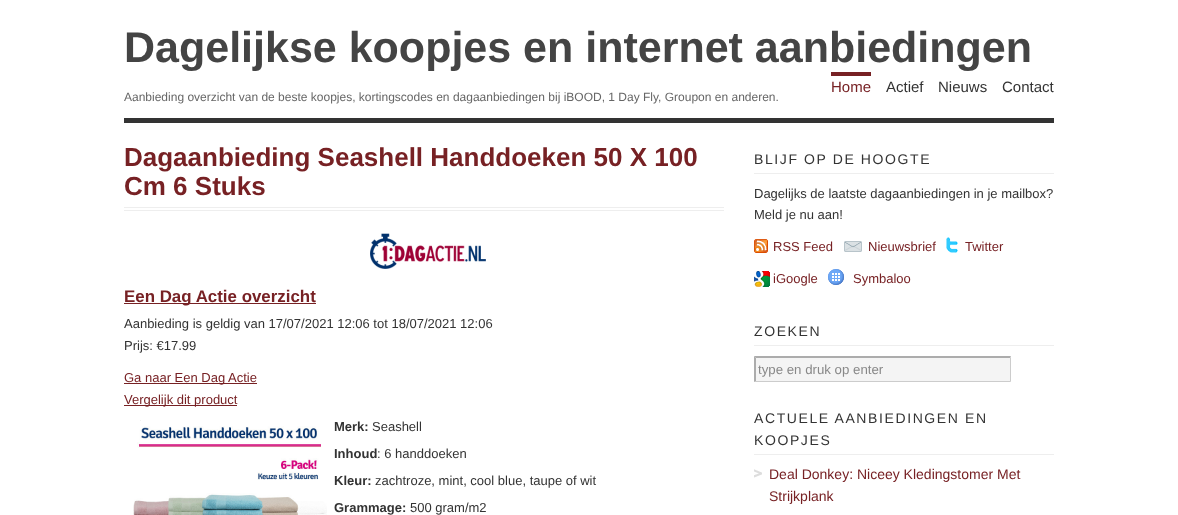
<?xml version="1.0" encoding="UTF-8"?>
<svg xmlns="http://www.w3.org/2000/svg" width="1178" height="515">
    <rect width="100%" height="100%" fill="#FFFFFF"/>
    <rect x="124" y="118" width="930" height="5" fill="#333333"/>
    <text x="124" y="62" font-family="Liberation Sans" font-size="43" font-weight="700" fill="#444444">Dagelijkse koopjes en internet aanbiedingen</text>
    <text x="831" y="92" font-family="Liberation Sans" font-size="15" fill="#772124">Home</text>
    <rect x="831" y="72" width="40" height="4" fill="#772124"/>
    <text x="886" y="92" font-family="Liberation Sans" font-size="15" fill="#333333">Actief</text>
    <text x="938" y="92" font-family="Liberation Sans" font-size="15" fill="#333333">Nieuws</text>
    <text x="1002" y="92" font-family="Liberation Sans" font-size="15" fill="#333333">Contact</text>
    <text x="124" y="101" font-family="Liberation Sans" font-size="12" fill="#666666">Aanbieding overzicht van de beste koopjes, kortingscodes en dagaanbiedingen bij iBOOD, 1 Day Fly, Groupon en anderen.</text>
    <rect x="124" y="207" width="600" height="1" fill="#EEEEEE"/>
    <rect x="124" y="210" width="600" height="1" fill="#EEEEEE"/>
    <text font-family="Liberation Sans" font-size="26" font-weight="700" fill="#772124">
        <tspan x="124" y="166">Dagaanbieding Seashell Handdoeken 50 X 100</tspan>
        <tspan x="124" y="195">Cm 6 Stuks</tspan>
    </text>
    <image x="370" y="233" width="116" height="36" href="img_01.png"/>
    <rect x="124" y="303" width="192" height="1" fill="#772124"/>
    <text x="124" y="302" font-family="Liberation Sans" font-size="16.9" font-weight="700" fill="#772124">Een Dag Actie overzicht</text>
    <text font-family="Liberation Sans" font-size="13" fill="#333333">
        <tspan x="124" y="328">Aanbieding is geldig van 17/07/2021 12:06 tot 18/07/2021 12:06</tspan>
        <tspan x="124" y="350">Prijs: €17.99</tspan>
    </text>
    <rect x="124" y="383" width="133" height="1" fill="#772124"/>
    <text x="124" y="382" font-family="Liberation Sans" font-size="13" fill="#772124">Ga naar Een Dag Actie</text>
    <rect x="124" y="405" width="113" height="1" fill="#772124"/>
    <text x="124" y="404" font-family="Liberation Sans" font-size="13" fill="#772124">Vergelijk dit product</text>
    <image x="133" y="421" width="194" height="94" href="img_02.png"/>
    <image x="140" y="420" width="1" height="1" href="img_03.png"/>
    <text x="334" y="431" font-family="Liberation Sans" font-size="13" font-weight="700" fill="#333333">Merk:</text>
    <text x="372" y="431" font-family="Liberation Sans" font-size="13" fill="#333333">Seashell</text>
    <text x="334" y="458" font-family="Liberation Sans" font-size="13" font-weight="700" fill="#333333">Inhoud</text>
    <text x="377" y="458" font-family="Liberation Sans" font-size="13" fill="#333333">: 6 handdoeken</text>
    <text x="334" y="485" font-family="Liberation Sans" font-size="13" font-weight="700" fill="#333333">Kleur:</text>
    <text x="375" y="485" font-family="Liberation Sans" font-size="13" fill="#333333">zachtroze, mint, cool blue, taupe of wit</text>
    <text x="334" y="512" font-family="Liberation Sans" font-size="13" font-weight="700" fill="#333333">Grammage:</text>
    <text x="410" y="512" font-family="Liberation Sans" font-size="13" fill="#333333">500 gram/m2</text>
    <rect x="754" y="173" width="300" height="1" fill="#EEEEEE"/>
    <text x="754" y="164" font-family="Liberation Sans" font-size="14" letter-spacing="1.6" fill="#333333">BLIJF OP DE HOOGTE</text>
    <text font-family="Liberation Sans" font-size="13" fill="#333333">
        <tspan x="754" y="198">Dagelijks de laatste dagaanbiedingen in je mailbox?</tspan>
        <tspan x="754" y="219">Meld je nu aan!</tspan>
    </text>
    <image x="754" y="239" width="14" height="14" href="img_04.png"/>
    <text x="773" y="251" font-family="Liberation Sans" font-size="13" fill="#772124">RSS Feed</text>
    <image x="844" y="241" width="18" height="11" href="img_05.png"/>
    <text x="868" y="251" font-family="Liberation Sans" font-size="13" fill="#772124">Nieuwsbrief</text>
    <image x="946" y="237" width="12" height="16" href="img_06.png"/>
    <text x="965" y="251" font-family="Liberation Sans" font-size="13" fill="#772124">Twitter</text>
    <image x="754" y="271" width="16" height="16" href="img_07.png"/>
    <text x="773" y="283" font-family="Liberation Sans" font-size="13" fill="#772124">iGoogle</text>
    <image x="828" y="269" width="16" height="16" href="img_08.png"/>
    <text x="853" y="283" font-family="Liberation Sans" font-size="13" fill="#772124">Symbaloo</text>
    <rect x="754" y="345" width="300" height="1" fill="#EEEEEE"/>
    <text x="754" y="336" font-family="Liberation Sans" font-size="14" letter-spacing="1.6" fill="#333333">ZOEKEN</text>
    <rect x="756" y="358" width="254" height="23" fill="#F4F4F4"/>
    <path d="M 754 356 H 1011 L 1010 358 H 756 Z" fill="#ACACAC"/>
    <path d="M 1011 356 V 382 L 1010 381 V 358 Z" fill="#CCCCCC"/>
    <path d="M 1011 382 H 754 L 756 381 H 1010 Z" fill="#CCCCCC"/>
    <path d="M 754 382 V 356 L 756 358 V 381 Z" fill="#ACACAC"/>
    <text x="758" y="374" font-family="Liberation Sans" font-size="13.25" fill="#888888">type en druk op enter</text>
    <rect x="754" y="454" width="300" height="1" fill="#EEEEEE"/>
    <text font-family="Liberation Sans" font-size="14" letter-spacing="1.6" fill="#333333">
        <tspan x="754" y="423">ACTUELE AANBIEDINGEN EN</tspan>
        <tspan x="754" y="445">KOOPJES</tspan>
    </text>
    <image x="754" y="469" width="8" height="9" href="img_09.png"/>
    <text font-family="Liberation Sans" font-size="14" fill="#772124">
        <tspan x="769" y="479">Deal Donkey: Niceey Kledingstomer Met</tspan>
        <tspan x="769" y="501">Strijkplank</tspan>
    </text>
</svg>
